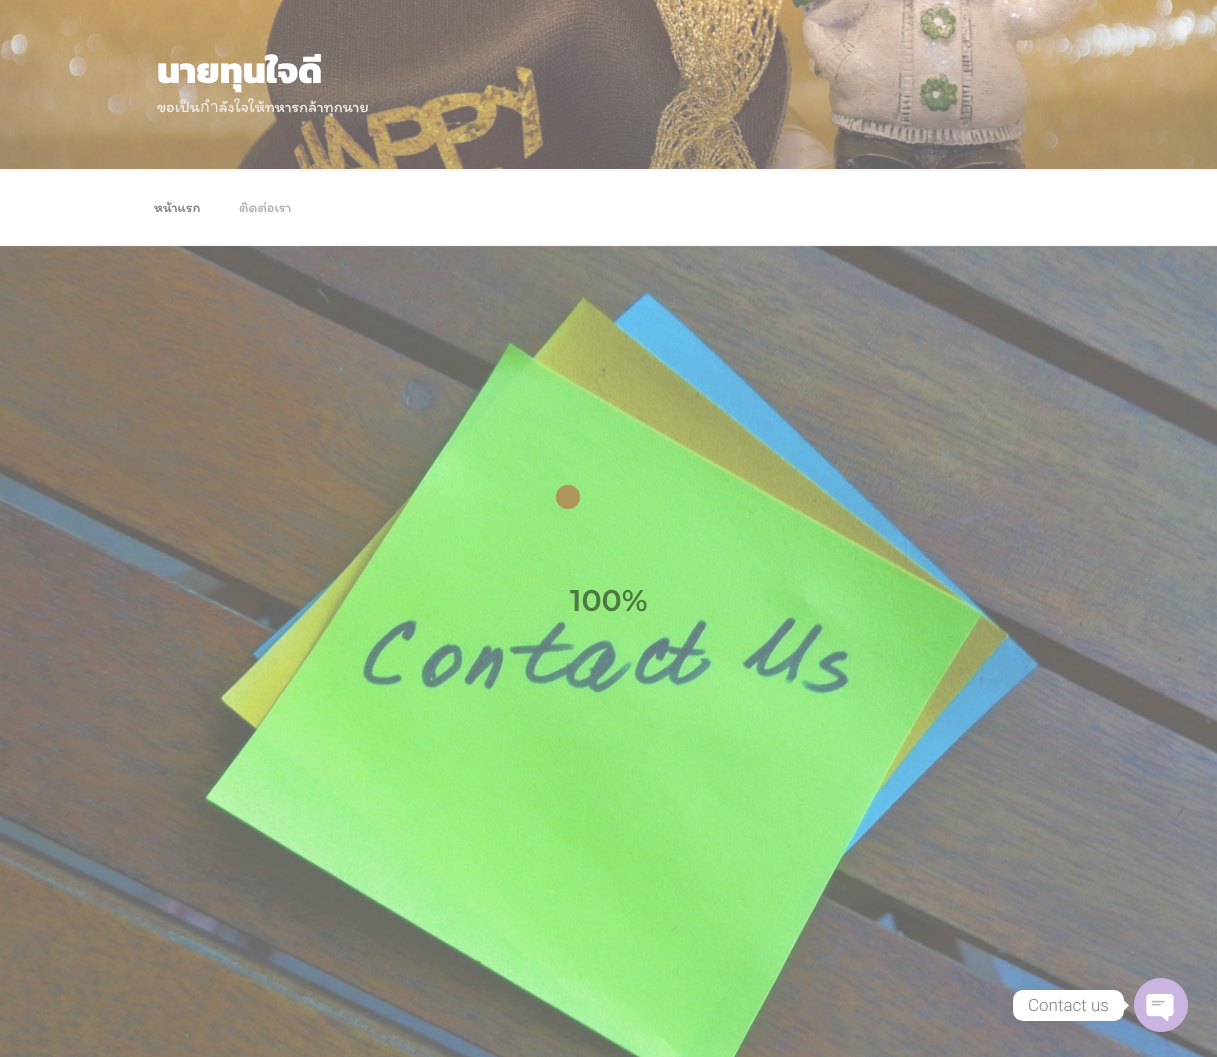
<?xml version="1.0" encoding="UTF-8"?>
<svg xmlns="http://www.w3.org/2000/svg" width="1217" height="1057">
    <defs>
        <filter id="blur1" x="-50%" y="-200%" width="200%" height="500%"><feGaussianBlur stdDeviation="4"/></filter>
    </defs>
    <rect width="100%" height="100%" fill="#FFFFFF"/>
    <rect x="0" y="169" width="1217" height="1" fill="#FCFCFC"/>
    <image x="0" y="0" width="1217" height="169" href="img_01.png"/>
    <text x="157" y="83" font-family="Kanit" font-size="36" font-weight="800" fill="#FFFFFF">นายทุนใจดี</text>
    <text x="157" y="112" font-family="Itim" font-size="16" fill="#EDE8E4">ขอเป็นกำลังใจให้ทหารกล้าทุกนาย</text>
    <rect x="0" y="170" width="1217" height="1" fill="#F5F5F5"/>
    <rect x="0" y="245" width="1217" height="1" fill="#F5F5F5"/>
    <text x="154" y="212" font-family="Itim" font-size="14" fill="#787878">หน้าแรก</text>
    <text x="239" y="212" font-family="Itim" font-size="14" fill="#ABABAB">ติดต่อเรา</text>
    <image x="0" y="246" width="1217" height="811" href="img_02.png"/>
    <rect x="1013" y="991" width="111" height="31" rx="10" fill="#636363" fill-opacity="0.15" filter="url(#blur1)"/>
    <rect x="1013" y="990" width="111" height="31" rx="10" fill="#FFFFFF"/>
    <text x="1028" y="1011" font-family="Roboto" font-size="17" font-weight="300" fill="#838383">Contact us</text>
    <path d="M 1124 1010.5 V 1000.5 L 1129 1005.5 Z" fill="#FFFFFF"/>
    <image x="1134" y="978" width="54" height="54" href="img_03.png"/>
    <circle cx="568" cy="497" r="12" fill="#7D934D" fill-opacity="0.48"/>
    <circle cx="568" cy="497" r="12" fill="#ABBD81" fill-opacity="0.48"/>
    <circle cx="568" cy="497" r="12" fill="#F8B26A" fill-opacity="0.48"/>
    <circle cx="568" cy="497" r="12" fill="#F47E60" fill-opacity="0.48"/>
    <circle cx="568" cy="497" r="12" fill="#7D934D" fill-opacity="0.48"/>
    <text x="570" y="611" font-family="Montserrat" font-size="30" font-weight="600" fill="#4D7942">100%</text>
</svg>
